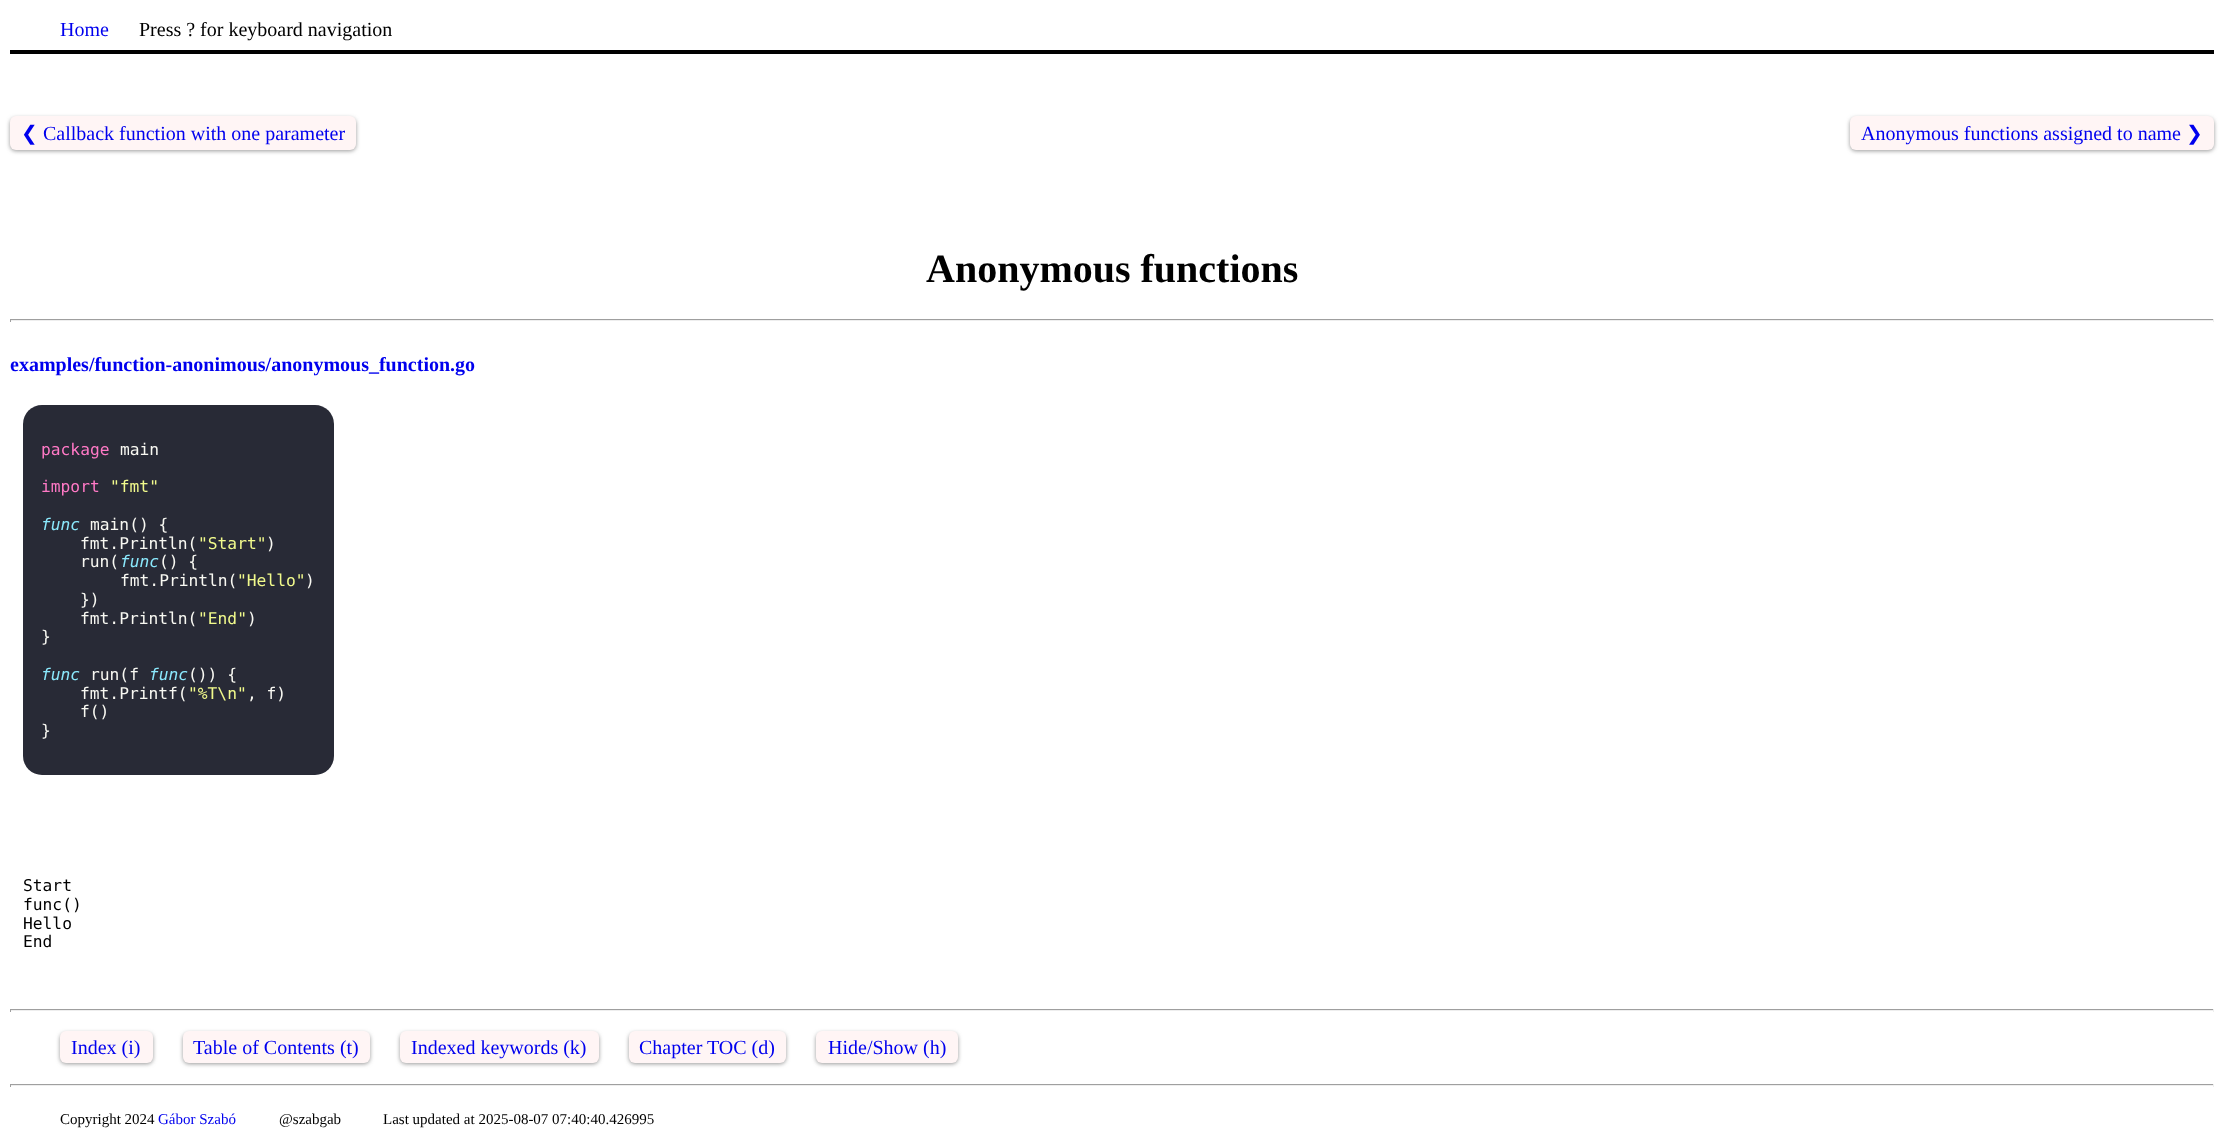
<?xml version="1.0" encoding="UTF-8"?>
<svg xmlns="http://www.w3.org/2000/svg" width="2223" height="1142">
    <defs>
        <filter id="blur1" x="-50%" y="-200%" width="200%" height="500%"><feGaussianBlur stdDeviation="2"/></filter>
    </defs>
    <rect width="100%" height="100%" fill="#FFFFFF"/>
    <rect x="10" y="50" width="2204" height="4" fill="#000000"/>
    <text x="60" y="36" font-family="Liberation Serif" font-size="20" fill="#0000EE">Home</text>
    <text x="139" y="36" font-family="Liberation Serif" font-size="20" fill="#000000">Press ? for keyboard navigation</text>
    <rect x="10" y="118" width="346" height="33" rx="6" fill="#999999" filter="url(#blur1)"/>
    <rect x="10" y="116" width="346" height="34" rx="6" fill="#FFF5F5"/>
    <text x="21" y="140" font-family="DejaVu Sans" font-size="20" fill="#0000EE">❮</text>
    <text x="43" y="140" font-family="Liberation Serif" font-size="20" fill="#0000EE">Callback function with one parameter</text>
    <rect x="1850" y="118" width="364" height="33" rx="6" fill="#999999" filter="url(#blur1)"/>
    <rect x="1850" y="116" width="364" height="34" rx="6" fill="#FFF5F5"/>
    <text x="1861" y="140" font-family="Liberation Serif" font-size="20" fill="#0000EE">Anonymous functions assigned to name</text>
    <text x="2186" y="140" font-family="DejaVu Sans" font-size="20" fill="#0000EE">❯</text>
    <text x="926" y="282" font-family="Liberation Serif" font-size="40" font-weight="700" fill="#000000">Anonymous functions</text>
    <rect x="10" y="319" width="2204" height="1" fill="#9F9F9F"/>
    <rect x="2213" y="319" width="1" height="3" fill="#EEEEEE"/>
    <rect x="10" y="320" width="2204" height="1" fill="#EEEEEE"/>
    <rect x="10" y="319" width="1" height="3" fill="#9F9F9F"/>
    <text x="10" y="371" font-family="Liberation Serif" font-size="20" font-weight="700" fill="#0000EE">examples/function-anonimous/anonymous_function.go</text>
    <rect x="23" y="405" width="311" height="370" rx="19" fill="#282A36"/>
    <text x="41" y="455" font-family="DejaVu Sans Mono" font-size="16.25" fill="#FF79C6">package</text>
    <text x="120" y="455" font-family="DejaVu Sans Mono" font-size="16.25" fill="#F8F8F2">main</text>
    <text x="41" y="492" font-family="DejaVu Sans Mono" font-size="16.25" fill="#FF79C6">import</text>
    <text x="110" y="492" font-family="DejaVu Sans Mono" font-size="16.25" fill="#F1FA8C">"fmt"</text>
    <text x="41" y="530" font-family="DejaVu Sans Mono" font-size="16.25" font-style="italic" fill="#8BE9FD">func</text>
    <text x="90" y="530" font-family="DejaVu Sans Mono" font-size="16.25" fill="#F8F8F2">main() {</text>
    <text x="80" y="549" font-family="DejaVu Sans Mono" font-size="16.25" fill="#F8F8F2">fmt.Println(</text>
    <text x="198" y="549" font-family="DejaVu Sans Mono" font-size="16.25" fill="#F1FA8C">"Start"</text>
    <text x="266" y="549" font-family="DejaVu Sans Mono" font-size="16.25" fill="#F8F8F2">)</text>
    <text x="80" y="567" font-family="DejaVu Sans Mono" font-size="16.25" fill="#F8F8F2">run(</text>
    <text x="120" y="567" font-family="DejaVu Sans Mono" font-size="16.25" font-style="italic" fill="#8BE9FD">func</text>
    <text x="159" y="567" font-family="DejaVu Sans Mono" font-size="16.25" fill="#F8F8F2">() {</text>
    <text x="120" y="586" font-family="DejaVu Sans Mono" font-size="16.25" fill="#F8F8F2">fmt.Println(</text>
    <text x="237" y="586" font-family="DejaVu Sans Mono" font-size="16.25" fill="#F1FA8C">"Hello"</text>
    <text x="305" y="586" font-family="DejaVu Sans Mono" font-size="16.25" fill="#F8F8F2">)</text>
    <text font-family="DejaVu Sans Mono" font-size="16.25" fill="#F8F8F2">
        <tspan x="80" y="605">})</tspan>
        <tspan x="80" y="624">fmt.Println(</tspan>
    </text>
    <text x="198" y="624" font-family="DejaVu Sans Mono" font-size="16.25" fill="#F1FA8C">"End"</text>
    <text x="247" y="624" font-family="DejaVu Sans Mono" font-size="16.25" fill="#F8F8F2">)</text>
    <text x="41" y="642" font-family="DejaVu Sans Mono" font-size="16.25" fill="#F8F8F2">}</text>
    <text x="41" y="680" font-family="DejaVu Sans Mono" font-size="16.25" font-style="italic" fill="#8BE9FD">func</text>
    <text x="90" y="680" font-family="DejaVu Sans Mono" font-size="16.25" fill="#F8F8F2">run(f</text>
    <text x="149" y="680" font-family="DejaVu Sans Mono" font-size="16.25" font-style="italic" fill="#8BE9FD">func</text>
    <text x="188" y="680" font-family="DejaVu Sans Mono" font-size="16.25" fill="#F8F8F2">()) {</text>
    <text x="80" y="699" font-family="DejaVu Sans Mono" font-size="16.25" fill="#F8F8F2">fmt.Printf(</text>
    <text x="188" y="699" font-family="DejaVu Sans Mono" font-size="16.25" fill="#F1FA8C">"%T\n"</text>
    <text x="247" y="699" font-family="DejaVu Sans Mono" font-size="16.25" fill="#F8F8F2">, f)</text>
    <text x="80" y="717" font-family="DejaVu Sans Mono" font-size="16.25" fill="#F8F8F2">f()</text>
    <text x="41" y="736" font-family="DejaVu Sans Mono" font-size="16.25" fill="#F8F8F2">}</text>
    <text font-family="DejaVu Sans Mono" font-size="16.25" fill="#000000">
        <tspan x="23" y="891">Start</tspan>
        <tspan x="23" y="910">func()</tspan>
        <tspan x="23" y="929">Hello</tspan>
        <tspan x="23" y="947">End</tspan>
    </text>
    <rect x="10" y="1009" width="2204" height="1" fill="#9F9F9F"/>
    <rect x="2213" y="1009" width="1" height="3" fill="#EEEEEE"/>
    <rect x="10" y="1010" width="2204" height="1" fill="#EEEEEE"/>
    <rect x="10" y="1009" width="1" height="3" fill="#9F9F9F"/>
    <rect x="60" y="1033" width="93" height="31" rx="6" fill="#999999" filter="url(#blur1)"/>
    <rect x="60" y="1031" width="93" height="32" rx="6" fill="#FFF5F5"/>
    <text x="71" y="1054" font-family="Liberation Serif" font-size="20" fill="#0000EE">Index (i)</text>
    <rect x="183" y="1033" width="187" height="31" rx="6" fill="#999999" filter="url(#blur1)"/>
    <rect x="183" y="1031" width="187" height="32" rx="6" fill="#FFF5F5"/>
    <text x="193" y="1054" font-family="Liberation Serif" font-size="20" fill="#0000EE">Table of Contents (t)</text>
    <rect x="400" y="1033" width="199" height="31" rx="6" fill="#999999" filter="url(#blur1)"/>
    <rect x="400" y="1031" width="199" height="32" rx="6" fill="#FFF5F5"/>
    <text x="411" y="1054" font-family="Liberation Serif" font-size="20" fill="#0000EE">Indexed keywords (k)</text>
    <rect x="629" y="1033" width="157" height="31" rx="6" fill="#999999" filter="url(#blur1)"/>
    <rect x="629" y="1031" width="157" height="32" rx="6" fill="#FFF5F5"/>
    <text x="639" y="1054" font-family="Liberation Serif" font-size="20" fill="#0000EE">Chapter TOC (d)</text>
    <rect x="816" y="1033" width="142" height="31" rx="6" fill="#999999" filter="url(#blur1)"/>
    <rect x="816" y="1031" width="142" height="32" rx="6" fill="#FFF5F5"/>
    <text x="828" y="1054" font-family="Liberation Serif" font-size="20" fill="#0000EE">Hide/Show (h)</text>
    <rect x="10" y="1084" width="2204" height="1" fill="#9F9F9F"/>
    <rect x="2213" y="1084" width="1" height="3" fill="#EEEEEE"/>
    <rect x="10" y="1085" width="2204" height="1" fill="#EEEEEE"/>
    <rect x="10" y="1084" width="1" height="3" fill="#9F9F9F"/>
    <text x="60" y="1124" font-family="Liberation Serif" font-size="15" fill="#000000">Copyright 2024</text>
    <text x="158" y="1124" font-family="Liberation Serif" font-size="15" fill="#0000EE">Gábor Szabó</text>
    <text x="279" y="1124" font-family="Liberation Serif" font-size="15" fill="#000000">@szabgab</text>
    <text x="383" y="1124" font-family="Liberation Serif" font-size="15" fill="#000000">Last updated at 2025-08-07 07:40:40.426995</text>
</svg>
